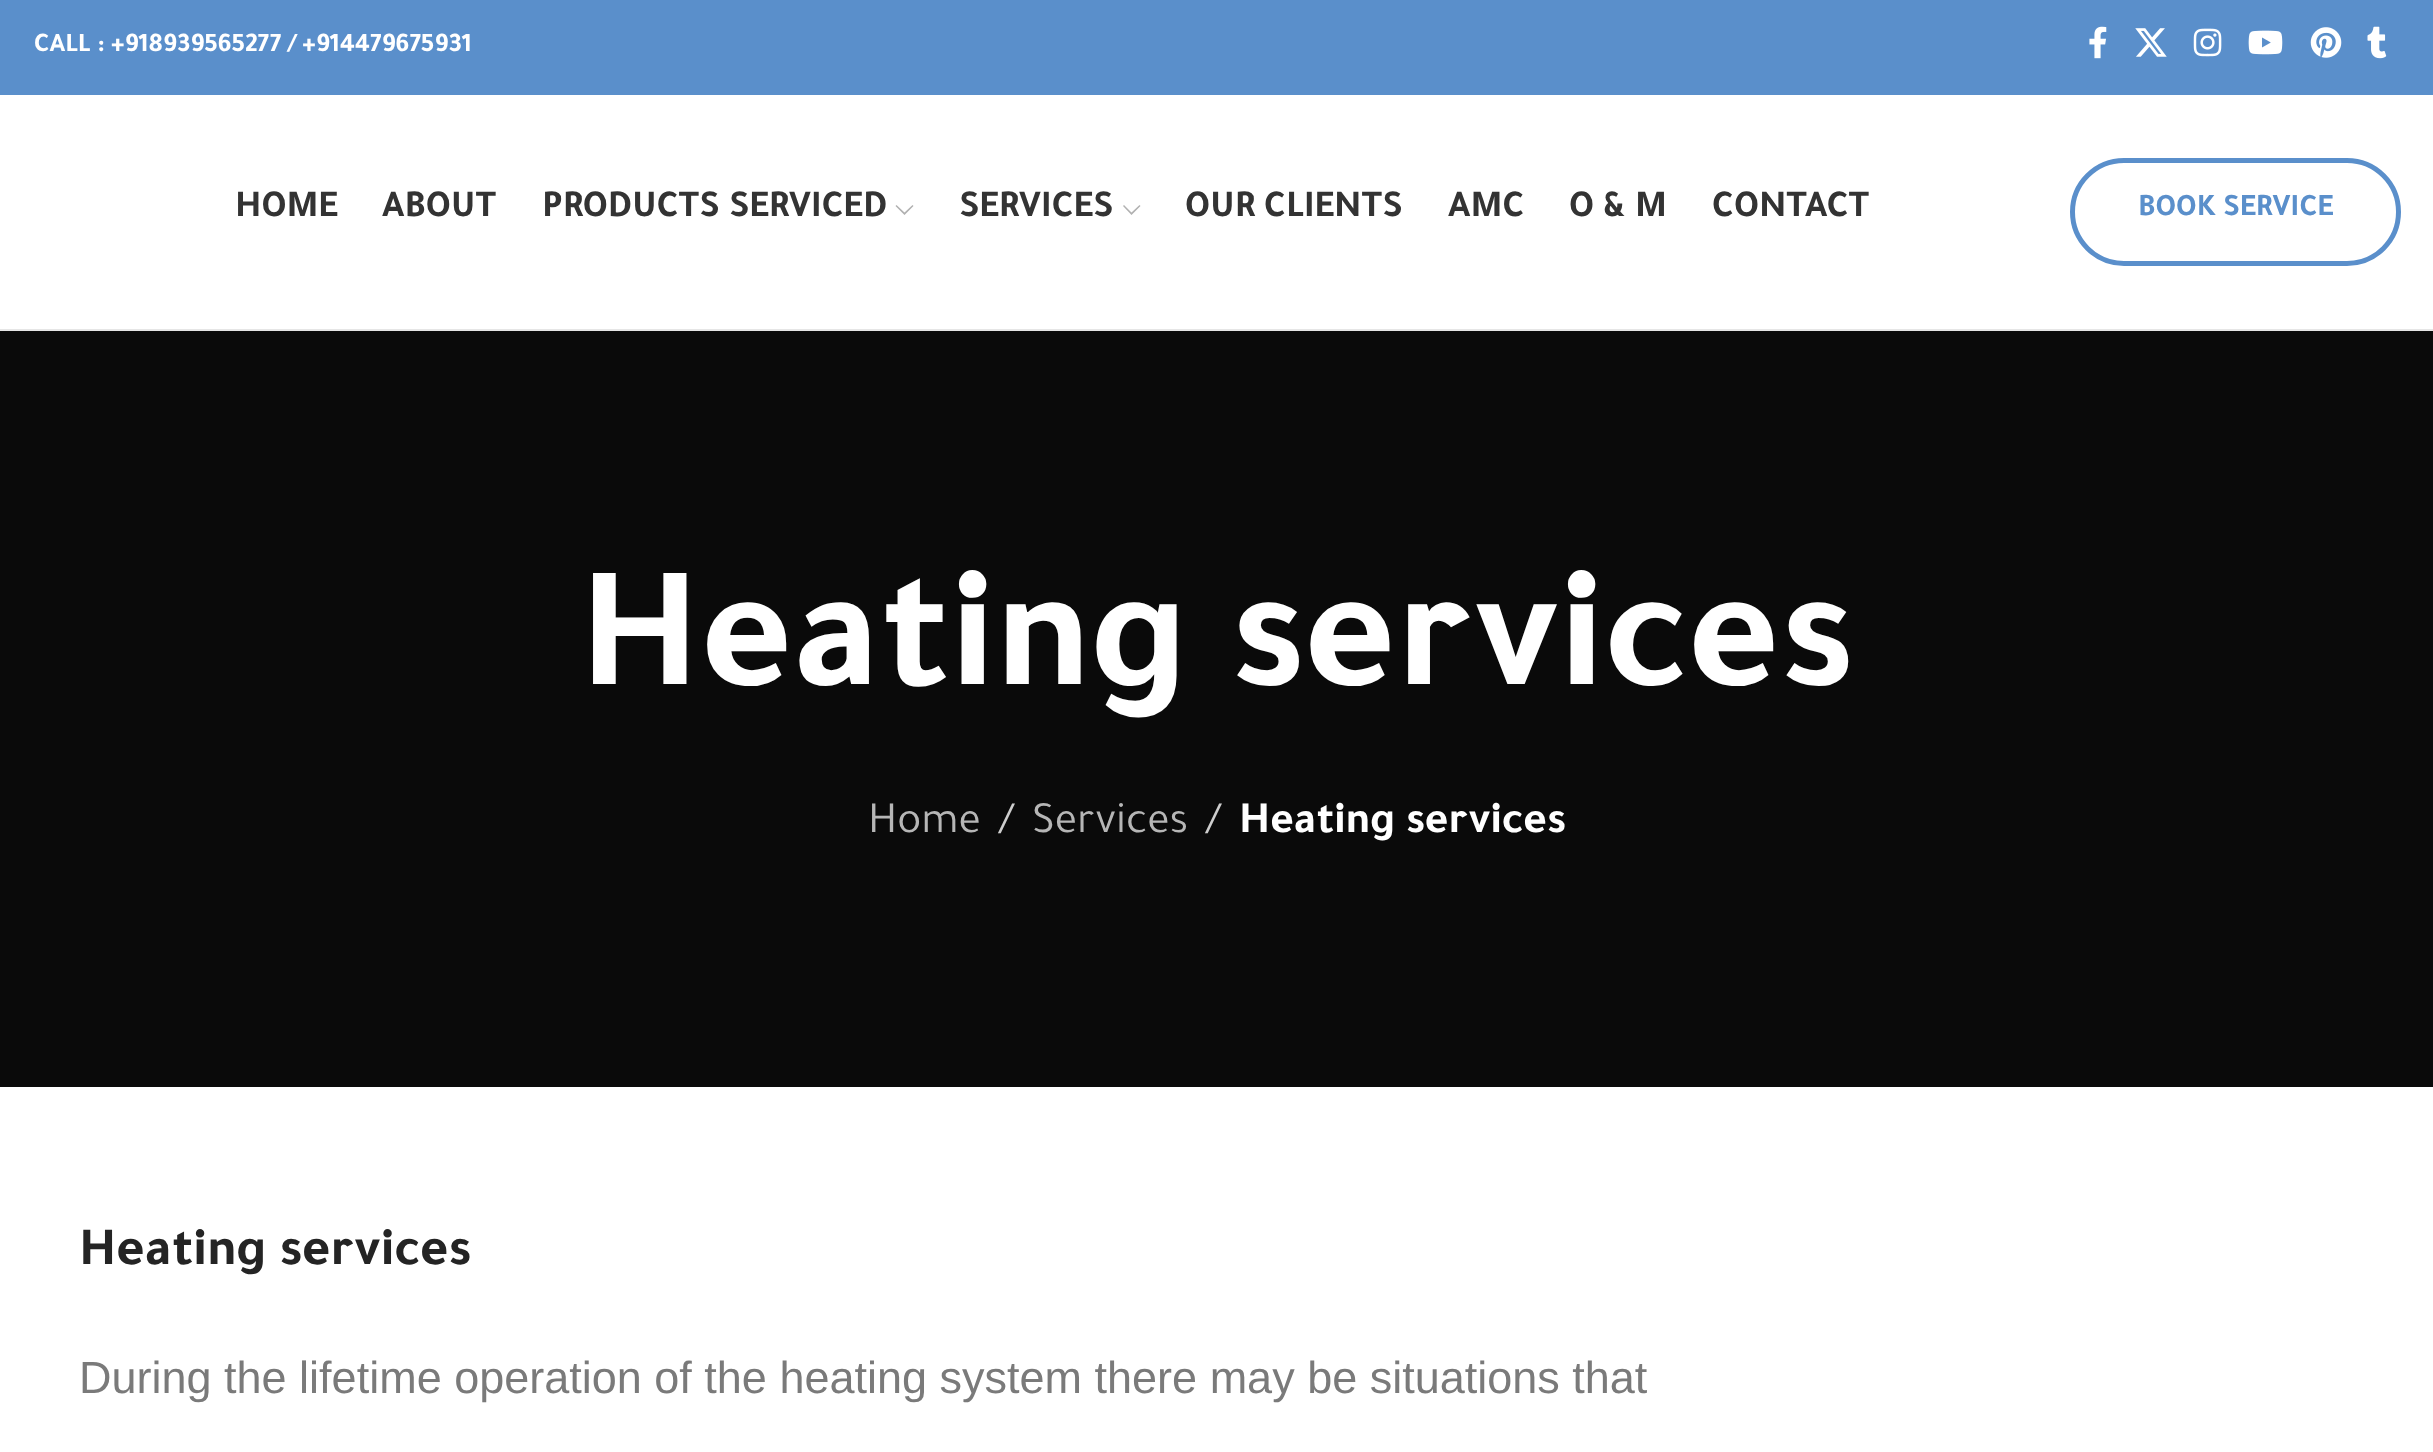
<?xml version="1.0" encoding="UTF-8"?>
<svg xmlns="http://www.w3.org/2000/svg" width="2433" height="1452">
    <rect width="100%" height="100%" fill="#FFFFFF"/>
    <rect x="0" y="0" width="2433" height="95" fill="#5A8FCB"/>
    <text x="34" y="51" font-family="Tajawal" font-size="27" font-weight="700" fill="#FFFFFF">CALL : +918939565277 / +914479675931</text>
    <image x="2089" y="26" width="18" height="33" href="img_01.png"/>
    <image x="2135" y="28" width="32" height="29" href="img_02.png"/>
    <image x="2193" y="28" width="29" height="29" href="img_03.png"/>
    <image x="2248" y="30" width="35" height="25" href="img_04.png"/>
    <image x="2310" y="27" width="32" height="31" href="img_05.png"/>
    <image x="2367" y="26" width="20" height="33" href="img_06.png"/>
    <rect x="0" y="329" width="2433" height="2" fill="#E6E6E6"/>
    <text x="235" y="216" font-family="Tajawal" font-size="38.25" font-weight="700" fill="#333333">HOME</text>
    <text x="382" y="216" font-family="Tajawal" font-size="38.25" font-weight="700" fill="#333333">ABOUT</text>
    <text x="542" y="216" font-family="Tajawal" font-size="38.25" font-weight="700" fill="#333333">PRODUCTS SERVICED</text>
    <path d="M 912.5 205 L 904.5 212.5 L 896.5 205 L 895.5 206 L 904.5 215 L 913.5 206 Z" fill="#B1B1B1"/>
    <text x="959" y="216" font-family="Tajawal" font-size="38.25" font-weight="700" fill="#333333">SERVICES</text>
    <path d="M 1139.5 205 L 1131.5 212.5 L 1124 205 L 1123 206 L 1131.5 215 L 1140.5 206 Z" fill="#B1B1B1"/>
    <text x="1185" y="216" font-family="Tajawal" font-size="38.25" font-weight="700" fill="#333333">OUR CLIENTS</text>
    <text x="1448" y="216" font-family="Tajawal" font-size="38.25" font-weight="700" fill="#333333">AMC</text>
    <text x="1569" y="216" font-family="Tajawal" font-size="38.25" font-weight="700" fill="#333333">O &amp; M</text>
    <text x="1712" y="216" font-family="Tajawal" font-size="38.25" font-weight="700" fill="#333333">CONTACT</text>
    <rect x="2072.5" y="160.5" width="326" height="103" rx="51.5" fill="none" stroke="#5A8FCB" stroke-width="5"/>
    <text x="2138" y="215" font-family="Tajawal" font-size="31.5" font-weight="700" fill="#5A8FCB">BOOK SERVICE</text>
    <rect x="0" y="331" width="2433" height="756" fill="#0A0A0A"/>
    <text x="579" y="684" font-family="Tajawal" font-size="175.5" font-weight="700" fill="#FFFFFF">Heating services</text>
    <text x="868" y="832" font-family="Tajawal" font-size="45" fill="#B6B6B6">Home</text>
    <text x="999" y="832" font-family="Tajawal" font-size="45" fill="#CECECE">/</text>
    <text x="1032" y="832" font-family="Tajawal" font-size="45" fill="#B6B6B6">Services</text>
    <text x="1206" y="832" font-family="Tajawal" font-size="45" fill="#CECECE">/</text>
    <text x="1239" y="832" font-family="Tajawal" font-size="45" font-weight="700" fill="#FFFFFF">Heating services</text>
    <text x="79" y="1264" font-family="Tajawal" font-size="54" font-weight="700" fill="#242424">Heating services</text>
    <text x="79" y="1393" font-family="Liberation Sans" font-size="45" fill="#7A7A7A">During the lifetime operation of the heating system there may be situations that</text>
</svg>
